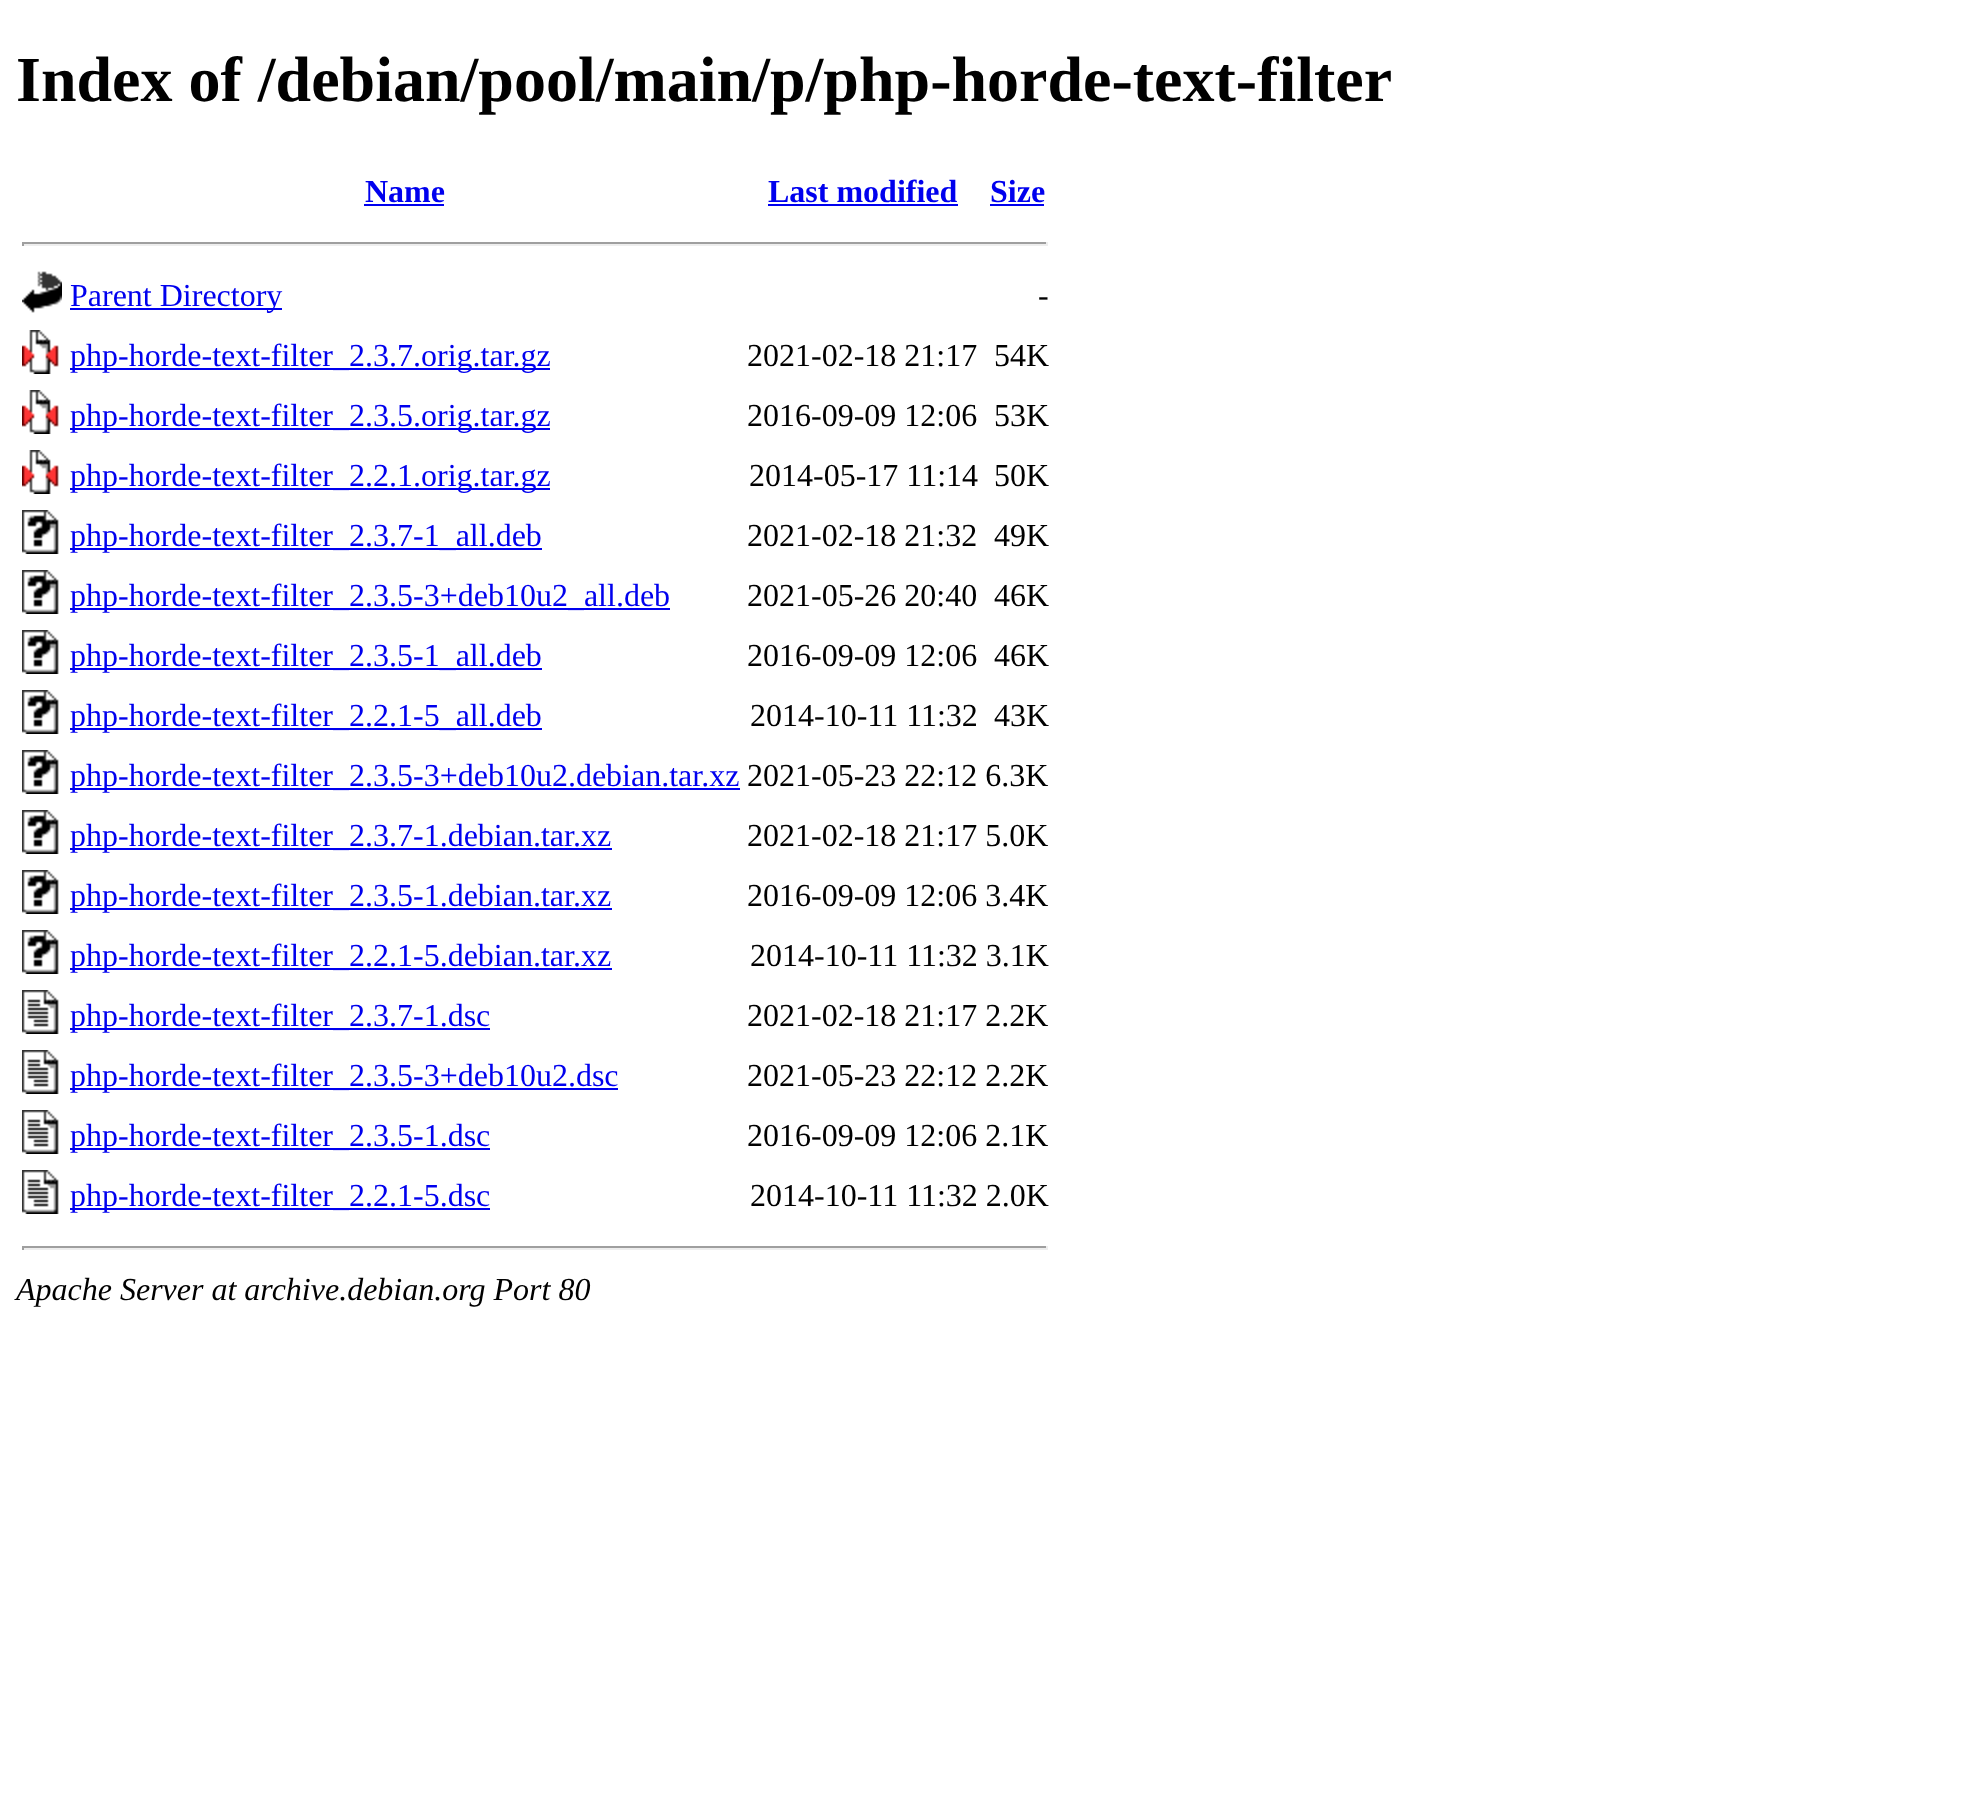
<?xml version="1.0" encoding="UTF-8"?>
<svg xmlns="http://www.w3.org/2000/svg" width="1984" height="1819">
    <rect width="100%" height="100%" fill="#FFFFFF"/>
    <text x="16" y="101" font-family="Liberation Serif" font-size="64" font-weight="700" fill="#000000">Index of /debian/pool/main/p/php-horde-text-filter</text>
    <text x="365" y="202" font-family="Liberation Serif" font-size="32" font-weight="700" fill="#0000EE">Name</text>
    <rect x="364" y="204" width="80" height="2" fill="#0000EE"/>
    <text x="768" y="202" font-family="Liberation Serif" font-size="32" font-weight="700" fill="#0000EE">Last modified</text>
    <rect x="768" y="204" width="190" height="2" fill="#0000EE"/>
    <text x="990" y="202" font-family="Liberation Serif" font-size="32" font-weight="700" fill="#0000EE">Size</text>
    <rect x="990" y="204" width="54" height="2" fill="#0000EE"/>
    <rect x="22" y="242" width="1026" height="2" fill="#9F9F9F"/>
    <rect x="1046" y="242" width="2" height="4" fill="#EEEEEE"/>
    <rect x="22" y="244" width="1026" height="2" fill="#EEEEEE"/>
    <rect x="22" y="242" width="2" height="4" fill="#9F9F9F"/>
    <image x="22" y="271" width="40" height="42" href="img_01.png"/>
    <rect x="70" y="308" width="212" height="2" fill="#0000EE"/>
    <text x="70" y="306" font-family="Liberation Serif" font-size="32" fill="#0000EE">Parent Directory</text>
    <text x="1038" y="306" font-family="Liberation Serif" font-size="32" fill="#000000">-</text>
    <image x="22" y="330" width="37" height="44" href="img_02.png"/>
    <rect x="70" y="368" width="480" height="2" fill="#0000EE"/>
    <text x="70" y="366" font-family="Liberation Serif" font-size="32" fill="#0000EE">php-horde-text-filter_2.3.7.orig.tar.gz</text>
    <text x="747" y="366" font-family="Liberation Serif" font-size="32" fill="#000000">2021-02-18 21:17</text>
    <text x="994" y="366" font-family="Liberation Serif" font-size="32" fill="#000000">54K</text>
    <image x="22" y="390" width="37" height="44" href="img_02.png"/>
    <rect x="70" y="428" width="480" height="2" fill="#0000EE"/>
    <text x="70" y="426" font-family="Liberation Serif" font-size="32" fill="#0000EE">php-horde-text-filter_2.3.5.orig.tar.gz</text>
    <text x="747" y="426" font-family="Liberation Serif" font-size="32" fill="#000000">2016-09-09 12:06</text>
    <text x="994" y="426" font-family="Liberation Serif" font-size="32" fill="#000000">53K</text>
    <image x="22" y="450" width="37" height="44" href="img_02.png"/>
    <rect x="70" y="488" width="480" height="2" fill="#0000EE"/>
    <text x="70" y="486" font-family="Liberation Serif" font-size="32" fill="#0000EE">php-horde-text-filter_2.2.1.orig.tar.gz</text>
    <text x="749" y="486" font-family="Liberation Serif" font-size="32" fill="#000000">2014-05-17 11:14</text>
    <text x="994" y="486" font-family="Liberation Serif" font-size="32" fill="#000000">50K</text>
    <image x="22" y="510" width="37" height="44" href="img_03.png"/>
    <rect x="70" y="548" width="472" height="2" fill="#0000EE"/>
    <text x="70" y="546" font-family="Liberation Serif" font-size="32" fill="#0000EE">php-horde-text-filter_2.3.7-1_all.deb</text>
    <text x="747" y="546" font-family="Liberation Serif" font-size="32" fill="#000000">2021-02-18 21:32</text>
    <text x="994" y="546" font-family="Liberation Serif" font-size="32" fill="#000000">49K</text>
    <image x="22" y="570" width="37" height="44" href="img_03.png"/>
    <rect x="70" y="608" width="600" height="2" fill="#0000EE"/>
    <text x="70" y="606" font-family="Liberation Serif" font-size="32" fill="#0000EE">php-horde-text-filter_2.3.5-3+deb10u2_all.deb</text>
    <text x="747" y="606" font-family="Liberation Serif" font-size="32" fill="#000000">2021-05-26 20:40</text>
    <text x="994" y="606" font-family="Liberation Serif" font-size="32" fill="#000000">46K</text>
    <image x="22" y="630" width="37" height="44" href="img_03.png"/>
    <rect x="70" y="668" width="472" height="2" fill="#0000EE"/>
    <text x="70" y="666" font-family="Liberation Serif" font-size="32" fill="#0000EE">php-horde-text-filter_2.3.5-1_all.deb</text>
    <text x="747" y="666" font-family="Liberation Serif" font-size="32" fill="#000000">2016-09-09 12:06</text>
    <text x="994" y="666" font-family="Liberation Serif" font-size="32" fill="#000000">46K</text>
    <image x="22" y="690" width="37" height="44" href="img_03.png"/>
    <rect x="70" y="728" width="472" height="2" fill="#0000EE"/>
    <text x="70" y="726" font-family="Liberation Serif" font-size="32" fill="#0000EE">php-horde-text-filter_2.2.1-5_all.deb</text>
    <text x="750" y="726" font-family="Liberation Serif" font-size="32" fill="#000000">2014-10-11 11:32</text>
    <text x="994" y="726" font-family="Liberation Serif" font-size="32" fill="#000000">43K</text>
    <image x="22" y="750" width="37" height="44" href="img_03.png"/>
    <rect x="70" y="788" width="670" height="2" fill="#0000EE"/>
    <text x="70" y="786" font-family="Liberation Serif" font-size="32" fill="#0000EE">php-horde-text-filter_2.3.5-3+deb10u2.debian.tar.xz</text>
    <text x="747" y="786" font-family="Liberation Serif" font-size="32" fill="#000000">2021-05-23 22:12 6.3K</text>
    <image x="22" y="810" width="37" height="44" href="img_03.png"/>
    <rect x="70" y="848" width="542" height="2" fill="#0000EE"/>
    <text x="70" y="846" font-family="Liberation Serif" font-size="32" fill="#0000EE">php-horde-text-filter_2.3.7-1.debian.tar.xz</text>
    <text x="747" y="846" font-family="Liberation Serif" font-size="32" fill="#000000">2021-02-18 21:17 5.0K</text>
    <image x="22" y="870" width="37" height="44" href="img_03.png"/>
    <rect x="70" y="908" width="542" height="2" fill="#0000EE"/>
    <text x="70" y="906" font-family="Liberation Serif" font-size="32" fill="#0000EE">php-horde-text-filter_2.3.5-1.debian.tar.xz</text>
    <text x="747" y="906" font-family="Liberation Serif" font-size="32" fill="#000000">2016-09-09 12:06 3.4K</text>
    <image x="22" y="930" width="37" height="44" href="img_03.png"/>
    <rect x="70" y="968" width="542" height="2" fill="#0000EE"/>
    <text x="70" y="966" font-family="Liberation Serif" font-size="32" fill="#0000EE">php-horde-text-filter_2.2.1-5.debian.tar.xz</text>
    <text x="750" y="966" font-family="Liberation Serif" font-size="32" fill="#000000">2014-10-11 11:32 3.1K</text>
    <image x="22" y="990" width="37" height="44" href="img_04.png"/>
    <rect x="70" y="1028" width="420" height="2" fill="#0000EE"/>
    <text x="70" y="1026" font-family="Liberation Serif" font-size="32" fill="#0000EE">php-horde-text-filter_2.3.7-1.dsc</text>
    <text x="747" y="1026" font-family="Liberation Serif" font-size="32" fill="#000000">2021-02-18 21:17 2.2K</text>
    <image x="22" y="1050" width="37" height="44" href="img_04.png"/>
    <rect x="70" y="1088" width="548" height="2" fill="#0000EE"/>
    <text x="70" y="1086" font-family="Liberation Serif" font-size="32" fill="#0000EE">php-horde-text-filter_2.3.5-3+deb10u2.dsc</text>
    <text x="747" y="1086" font-family="Liberation Serif" font-size="32" fill="#000000">2021-05-23 22:12 2.2K</text>
    <image x="22" y="1110" width="37" height="44" href="img_04.png"/>
    <rect x="70" y="1148" width="420" height="2" fill="#0000EE"/>
    <text x="70" y="1146" font-family="Liberation Serif" font-size="32" fill="#0000EE">php-horde-text-filter_2.3.5-1.dsc</text>
    <text x="747" y="1146" font-family="Liberation Serif" font-size="32" fill="#000000">2016-09-09 12:06 2.1K</text>
    <image x="22" y="1170" width="37" height="44" href="img_04.png"/>
    <rect x="70" y="1208" width="420" height="2" fill="#0000EE"/>
    <text x="70" y="1206" font-family="Liberation Serif" font-size="32" fill="#0000EE">php-horde-text-filter_2.2.1-5.dsc</text>
    <text x="750" y="1206" font-family="Liberation Serif" font-size="32" fill="#000000">2014-10-11 11:32 2.0K</text>
    <rect x="22" y="1246" width="1026" height="2" fill="#9F9F9F"/>
    <rect x="1046" y="1246" width="2" height="4" fill="#EEEEEE"/>
    <rect x="22" y="1248" width="1026" height="2" fill="#EEEEEE"/>
    <rect x="22" y="1246" width="2" height="4" fill="#9F9F9F"/>
    <text x="16" y="1300" font-family="Liberation Serif" font-size="32" font-style="italic" fill="#000000">Apache Server at archive.debian.org Port 80</text>
</svg>
